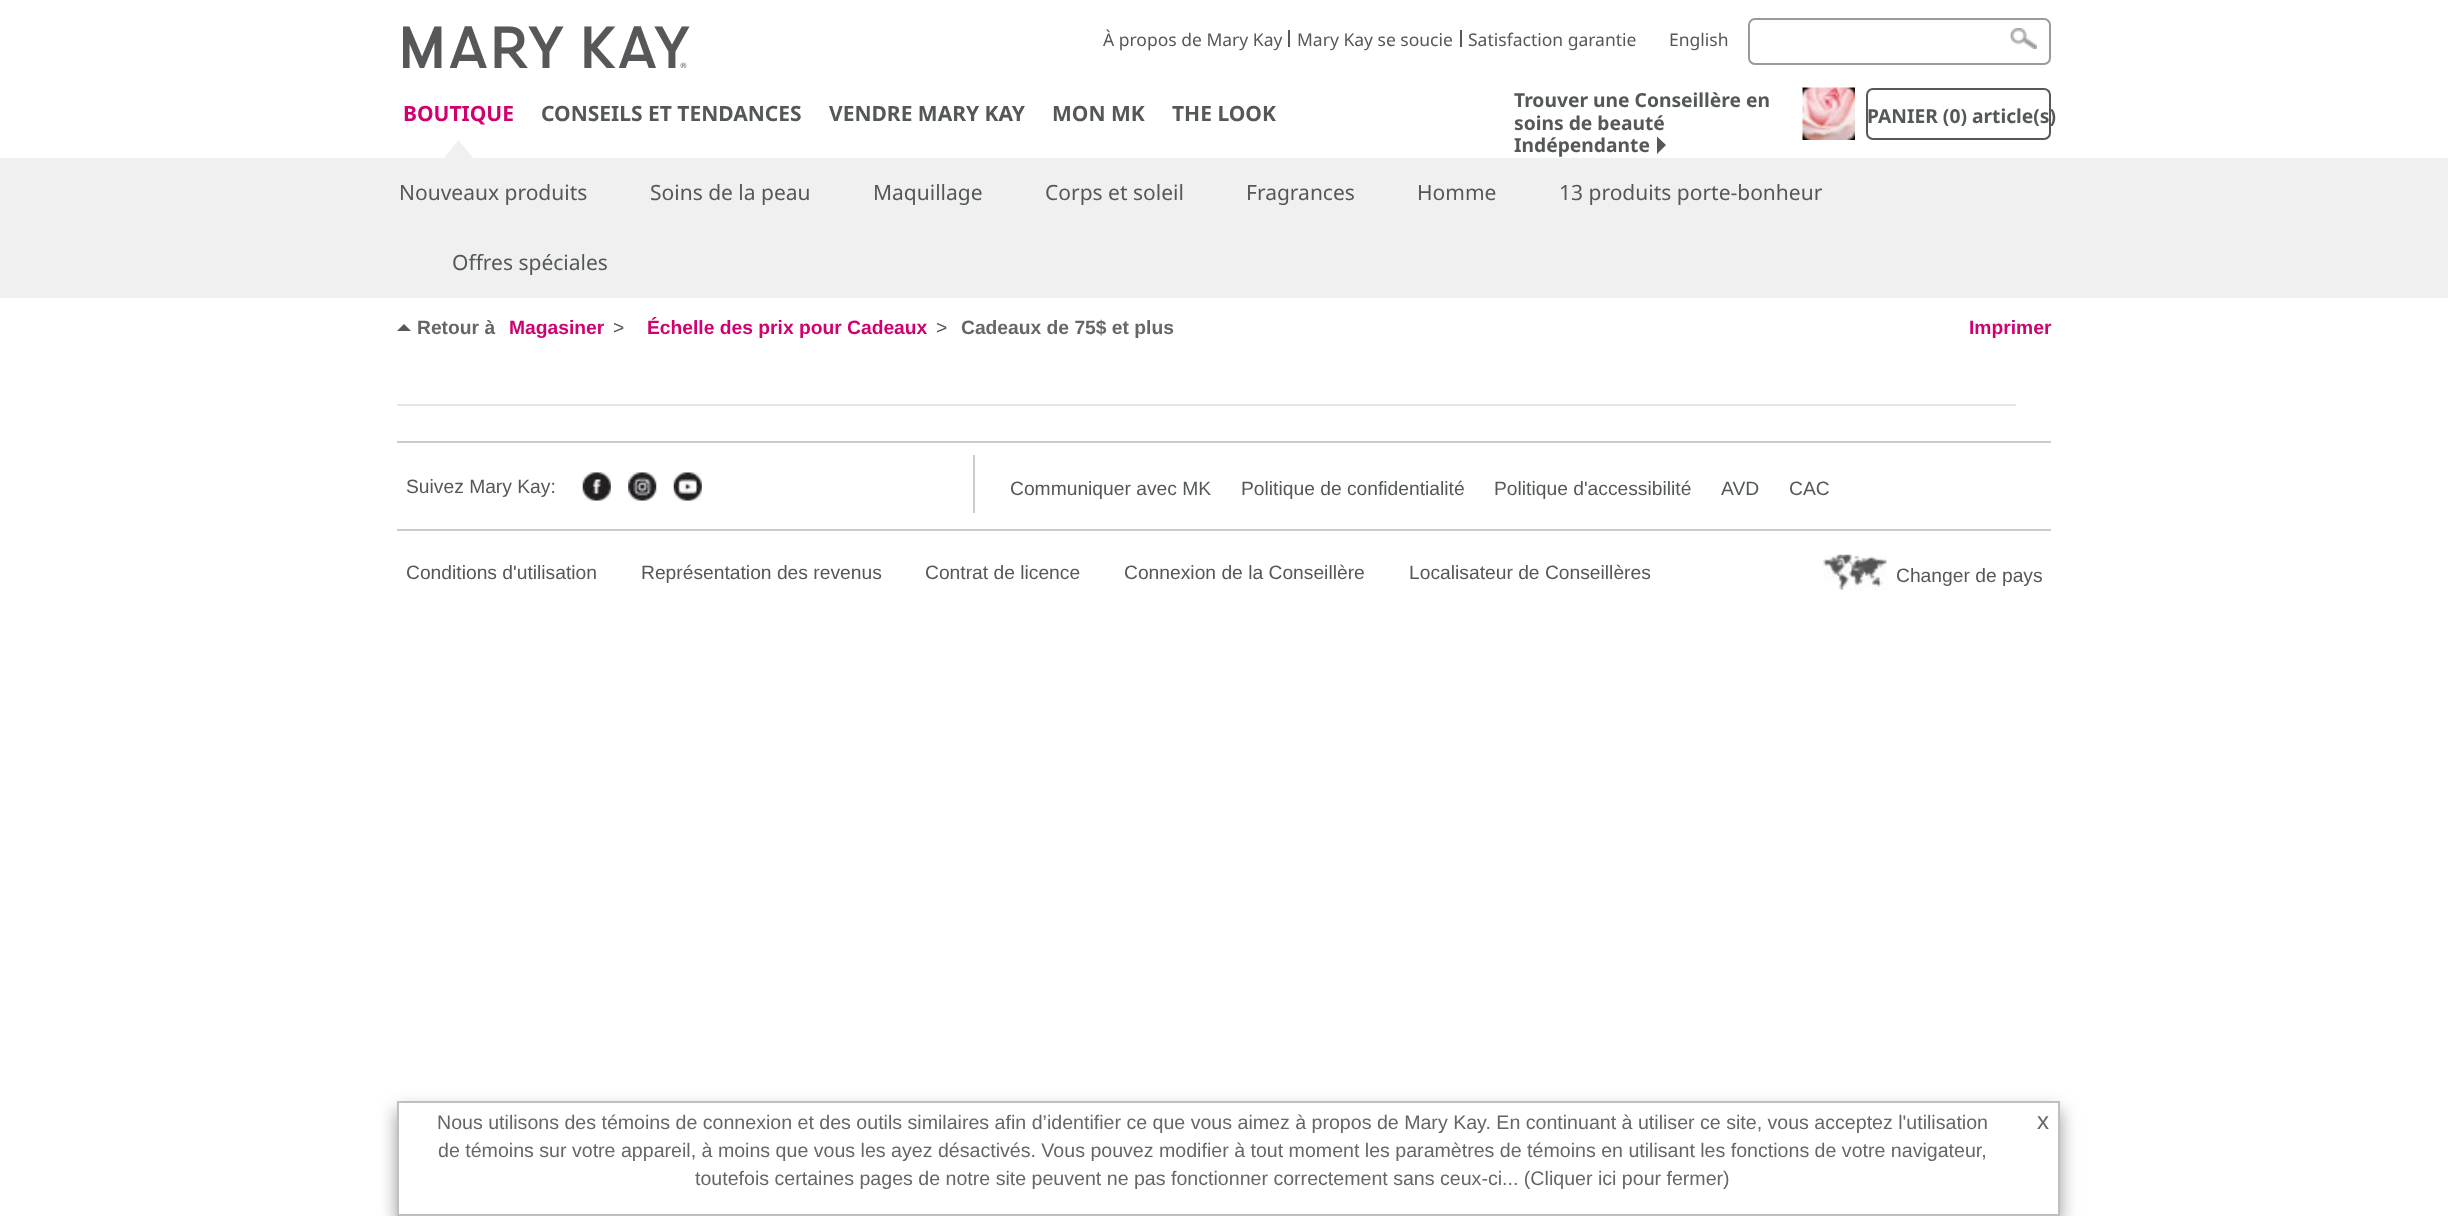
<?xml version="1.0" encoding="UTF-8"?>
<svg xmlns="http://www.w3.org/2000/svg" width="2448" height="1216">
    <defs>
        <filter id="blur1" x="-50%" y="-200%" width="200%" height="500%"><feGaussianBlur stdDeviation="9"/></filter>
    </defs>
    <rect width="100%" height="100%" fill="#FFFFFF"/>
    <text x="1103" y="46" font-family="Noto Sans" font-size="17.5" fill="#545859">À propos de Mary Kay</text>
    <rect x="1288" y="30" width="2" height="17" fill="#545859"/>
    <text x="1297" y="46" font-family="Noto Sans" font-size="17.5" fill="#545859">Mary Kay se soucie</text>
    <rect x="1460" y="30" width="2" height="17" fill="#545859"/>
    <text x="1468" y="46" font-family="Noto Sans" font-size="17.5" fill="#545859">Satisfaction garantie</text>
    <text x="1669" y="46" font-family="Noto Sans" font-size="17.5" fill="#545859">English</text>
    <image x="2010" y="28" width="27" height="21" href="img_01.png"/>
    <rect x="1749" y="19" width="301" height="45" rx="6" fill="#FFFFFF" fill-opacity="0.6" stroke="#989B9B" stroke-width="2"/>
    <image x="403" y="26" width="287" height="42" href="img_02.png"/>
    <text x="403" y="121" font-family="Noto Sans" font-size="21" font-weight="700" fill="#D00070">BOUTIQUE</text>
    <rect x="0" y="158" width="2448" height="140" fill="#F0F0F0"/>
    <path d="M 474 159 H 443 L 458.5 140 Z" fill="#F0F0F0"/>
    <text x="541" y="121" font-family="Noto Sans" font-size="21" font-weight="700" fill="#545859">CONSEILS ET TENDANCES</text>
    <text x="829" y="121" font-family="Noto Sans" font-size="21" font-weight="700" fill="#545859">VENDRE MARY KAY</text>
    <text x="1052" y="121" font-family="Noto Sans" font-size="21" font-weight="700" fill="#545859">MON MK</text>
    <text x="1172" y="121" font-family="Noto Sans" font-size="21" font-weight="700" fill="#545859">THE LOOK</text>
    <text font-family="Noto Sans" font-size="19.25" font-weight="700" fill="#545859">
        <tspan x="1514" y="107">Trouver une Conseillère en</tspan>
        <tspan x="1514" y="130">soins de beauté</tspan>
        <tspan x="1514" y="152">Indépendante</tspan>
    </text>
    <path d="M 1657 154 V 136.5 L 1666 145 Z" fill="#555759"/>
    <image x="1802" y="87" width="53" height="53" href="img_03.png"/>
    <rect x="1867" y="89" width="183" height="50" rx="6" fill="none" stroke="#545859" stroke-width="2"/>
    <text x="1867" y="123" font-family="Noto Sans" font-size="19.25" font-weight="700" fill="#545859">PANIER (0) article(s)</text>
    <text x="399" y="200" font-family="Noto Sans" font-size="21" fill="#545859">Nouveaux produits</text>
    <text x="650" y="200" font-family="Noto Sans" font-size="21" fill="#545859">Soins de la peau</text>
    <text x="873" y="200" font-family="Noto Sans" font-size="21" fill="#545859">Maquillage</text>
    <text x="1045" y="200" font-family="Noto Sans" font-size="21" fill="#545859">Corps et soleil</text>
    <text x="1246" y="200" font-family="Noto Sans" font-size="21" fill="#545859">Fragrances</text>
    <text x="1417" y="200" font-family="Noto Sans" font-size="21" fill="#545859">Homme</text>
    <text x="1559" y="200" font-family="Noto Sans" font-size="21" fill="#545859">13 produits porte-bonheur</text>
    <text x="452" y="270" font-family="Noto Sans" font-size="21" fill="#545859">Offres spéciales</text>
    <path d="M 411 331 H 397 L 404 324 Z" fill="#555759"/>
    <text x="417" y="334" font-family="Liberation Sans" font-size="19.25" font-weight="700" fill="#666666">Retour à</text>
    <text x="509" y="334" font-family="Liberation Sans" font-size="19.25" font-weight="700" fill="#D00070">Magasiner</text>
    <text x="613" y="334" font-family="Liberation Sans" font-size="19.25" fill="#545859">&gt;</text>
    <text x="647" y="334" font-family="Liberation Sans" font-size="19.25" font-weight="700" fill="#D00070">Échelle des prix pour Cadeaux</text>
    <text x="936" y="334" font-family="Liberation Sans" font-size="19.25" fill="#545859">&gt;</text>
    <text x="961" y="334" font-family="Liberation Sans" font-size="19.25" font-weight="700" fill="#666666">Cadeaux de 75$ et plus</text>
    <text x="1969" y="334" font-family="Liberation Sans" font-size="19.25" font-weight="700" fill="#D00070">Imprimer</text>
    <rect x="397" y="404" width="1619" height="2" fill="#E5E5E5"/>
    <rect x="397" y="441" width="1654" height="2" fill="#CCCCCC"/>
    <rect x="397" y="529" width="1654" height="2" fill="#CCCCCC"/>
    <rect x="973" y="455" width="2" height="58" fill="#CCCCCC"/>
    <text x="406" y="493" font-family="Liberation Sans" font-size="19.25" fill="#545859">Suivez Mary Kay:</text>
    <image x="582" y="472" width="29" height="29" href="img_04.png"/>
    <image x="628" y="472" width="29" height="29" href="img_05.png"/>
    <image x="673" y="472" width="29" height="29" href="img_06.png"/>
    <text x="1010" y="495" font-family="Liberation Sans" font-size="19.25" fill="#545859">Communiquer avec MK</text>
    <text x="1241" y="495" font-family="Liberation Sans" font-size="19.25" fill="#545859">Politique de confidentialité</text>
    <text x="1494" y="495" font-family="Liberation Sans" font-size="19.25" fill="#545859">Politique d'accessibilité</text>
    <text x="1721" y="495" font-family="Liberation Sans" font-size="19.25" fill="#545859">AVD</text>
    <text x="1789" y="495" font-family="Liberation Sans" font-size="19.25" fill="#545859">CAC</text>
    <text x="406" y="579" font-family="Liberation Sans" font-size="19.25" fill="#545859">Conditions d'utilisation</text>
    <text x="641" y="579" font-family="Liberation Sans" font-size="19.25" fill="#545859">Représentation des revenus</text>
    <text x="925" y="579" font-family="Liberation Sans" font-size="19.25" fill="#545859">Contrat de licence</text>
    <text x="1124" y="579" font-family="Liberation Sans" font-size="19.25" fill="#545859">Connexion de la Conseillère</text>
    <text x="1409" y="579" font-family="Liberation Sans" font-size="19.25" fill="#545859">Localisateur de Conseillères</text>
    <image x="1823" y="554" width="64" height="36" href="img_07.png"/>
    <text x="1896" y="582" font-family="Liberation Sans" font-size="19.25" fill="#545859">Changer de pays</text>
    <rect x="397" y="1110" width="1663" height="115" fill="#999999" filter="url(#blur1)"/>
    <rect x="398" y="1102" width="1661" height="113" fill="#FFFFFF" stroke="#BFBFBF" stroke-width="2"/>
    <text x="437" y="1129" font-family="Liberation Sans" font-size="19.6" fill="#666666">Nous utilisons des témoins de connexion et des outils similaires afin d’identifier ce que vous aimez à propos de Mary Kay. En continuant à utiliser ce site, vous acceptez l'utilisation</text>
    <text x="438" y="1157" font-family="Liberation Sans" font-size="19.6" fill="#666666">de témoins sur votre appareil, à moins que vous les ayez désactivés. Vous pouvez modifier à tout moment les paramètres de témoins en utilisant les fonctions de votre navigateur,</text>
    <text x="695" y="1185" font-family="Liberation Sans" font-size="19.6" fill="#666666">toutefois certaines pages de notre site peuvent ne pas fonctionner correctement sans ceux-ci... (Cliquer ici pour fermer)</text>
    <text x="2037" y="1129" font-family="Liberation Sans" font-size="24" fill="#666666">x</text>
</svg>
